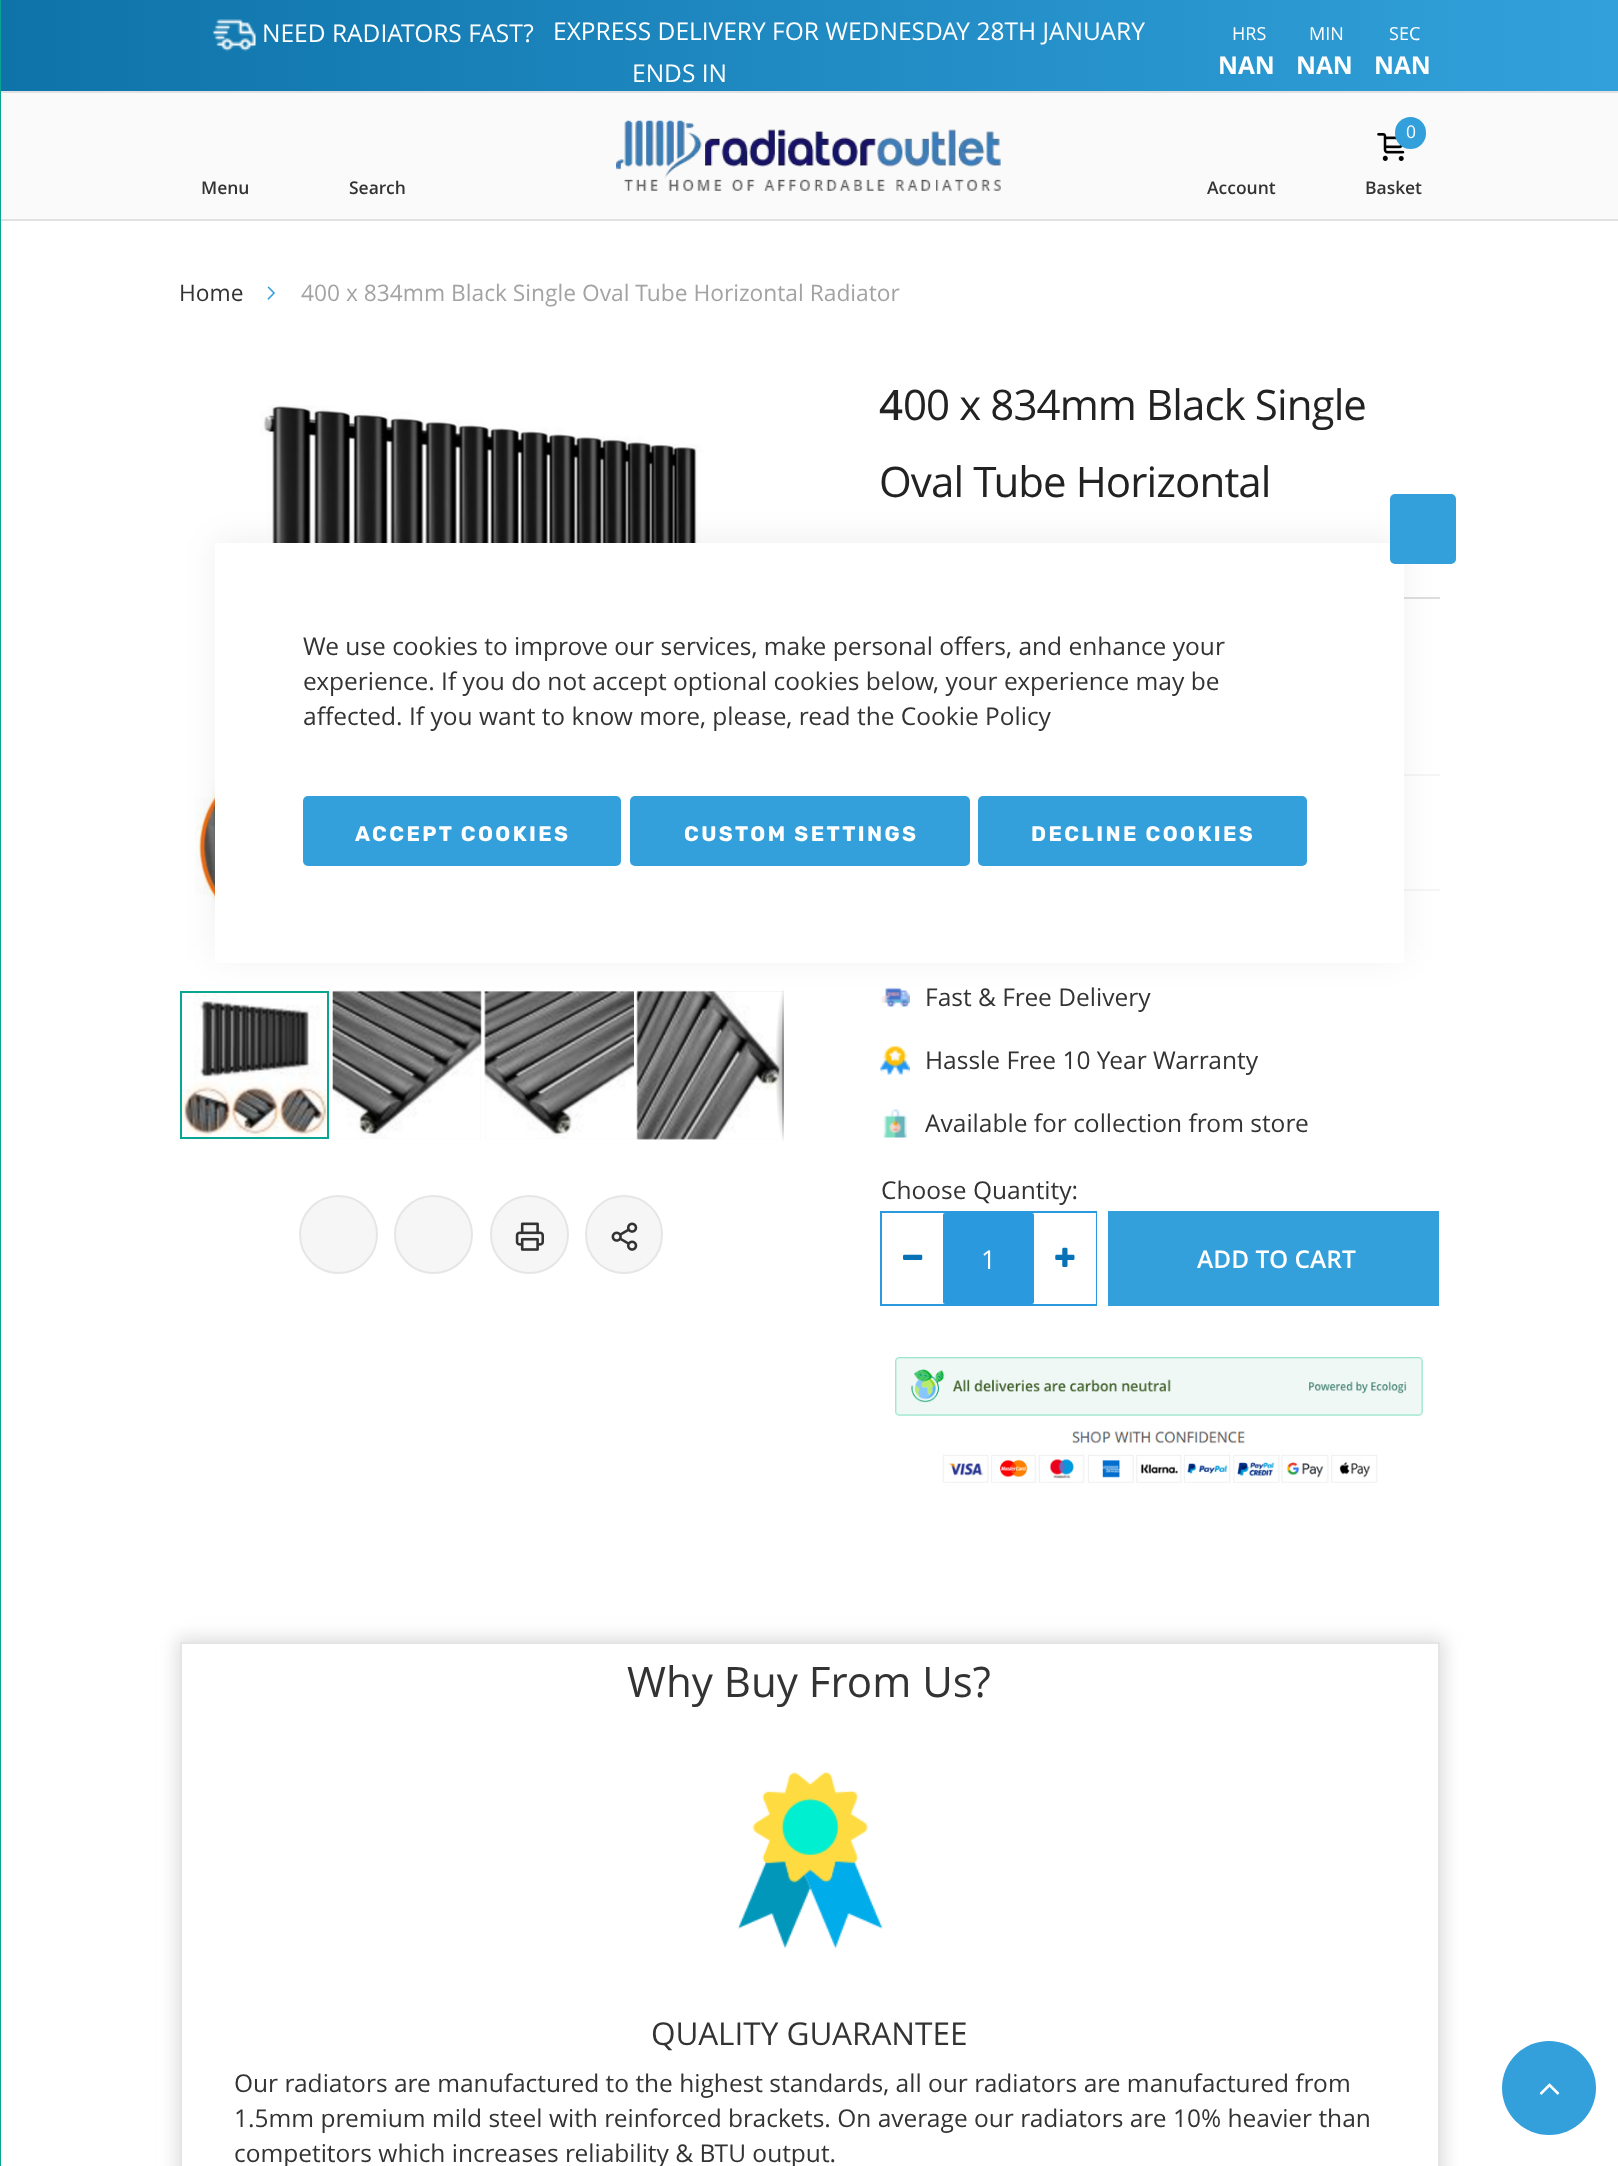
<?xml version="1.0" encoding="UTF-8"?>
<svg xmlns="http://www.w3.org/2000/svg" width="1618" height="2166">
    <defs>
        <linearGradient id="g1" gradientUnits="userSpaceOnUse" x1="0" y1="46" x2="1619" y2="45"><stop offset="0" stop-color="#0E73A9"/><stop offset="1" stop-color="#32A1DB"/></linearGradient>
        <radialGradient id="g2" gradientUnits="userSpaceOnUse" cx="0" cy="0" r="1" gradientTransform="matrix(9 0 0 78 784 1065)"><stop offset="0" stop-color="#000000" stop-opacity="0.4"/><stop offset="1" stop-color="#000000" stop-opacity="0"/></radialGradient>
        <linearGradient id="g3" gradientUnits="userSpaceOnUse" x1="783" y1="987" x2="783" y2="1143"><stop offset="0" stop-color="#000000" stop-opacity="0"/><stop offset="0.25" stop-color="#000000" stop-opacity="0.2"/><stop offset="0.75" stop-color="#000000" stop-opacity="0.3"/><stop offset="1" stop-color="#000000" stop-opacity="0"/></linearGradient>
        <clipPath id="clip1"><path d="M 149 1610 H 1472 V 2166 H 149 Z M 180 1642 H 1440 V 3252 H 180 Z" clip-rule="evenodd"/></clipPath>
        <filter id="blur1" x="-50%" y="-200%" width="200%" height="500%"><feGaussianBlur stdDeviation="9"/></filter>
        <filter id="blur2" x="-50%" y="-200%" width="200%" height="500%"><feGaussianBlur stdDeviation="16"/></filter>
    </defs>
    <rect width="100%" height="100%" fill="#FFFFFF"/>
    <rect x="1" y="0" width="1617" height="91" fill="url(#g1)"/>
    <image x="213" y="19" width="43" height="33" href="img_01.png"/>
    <text x="262" y="42" font-family="Open Sans" font-size="24.5" fill="#FFFFFF">NEED RADIATORS FAST?</text>
    <text x="553" y="40" font-family="Open Sans" font-size="24.5" fill="#FFFFFF">EXPRESS DELIVERY FOR WEDNESDAY 28TH JANUARY</text>
    <text x="632" y="82" font-family="Open Sans" font-size="24.5" fill="#FFFFFF">ENDS IN</text>
    <text x="1232" y="40" font-family="Open Sans" font-size="18" fill="#FFFFFF">HRS</text>
    <text x="1218" y="74" font-family="Open Sans" font-size="24.5" font-weight="700" fill="#FFFFFF">NAN</text>
    <text x="1309" y="40" font-family="Open Sans" font-size="18" fill="#FFFFFF">MIN</text>
    <text x="1296" y="74" font-family="Open Sans" font-size="24.5" font-weight="700" fill="#FFFFFF">NAN</text>
    <text x="1389" y="40" font-family="Open Sans" font-size="18" fill="#FFFFFF">SEC</text>
    <text x="1374" y="74" font-family="Open Sans" font-size="24.5" font-weight="700" fill="#FFFFFF">NAN</text>
    <rect x="0" y="91" width="1618" height="2" fill="#E1E1E1"/>
    <rect x="0" y="219" width="1618" height="2" fill="#E1E1E1"/>
    <rect x="0" y="0" width="1" height="2166" fill="#0AA493"/>
    <rect x="1" y="93" width="1617" height="126" fill="#FAFAFA"/>
    <text x="201" y="194" font-family="Open Sans" font-size="17.5" font-weight="600" fill="#333333">Menu</text>
    <text x="349" y="194" font-family="Open Sans" font-size="17.5" font-weight="600" fill="#333333">Search</text>
    <image x="616" y="120" width="385" height="71" href="img_02.png"/>
    <text x="1207" y="194" font-family="Open Sans" font-size="17.5" font-weight="600" fill="#333333">Account</text>
    <image x="1377" y="133" width="28" height="28" href="img_03.png"/>
    <rect x="1395" y="117" width="31" height="32" rx="15.5" fill="#33A0DB"/>
    <text x="1406" y="138" font-family="Open Sans" font-size="17.5" fill="#FFFFFF">0</text>
    <text x="1365" y="194" font-family="Open Sans" font-size="17.5" font-weight="600" fill="#333333">Basket</text>
    <text x="179" y="301" font-family="Open Sans" font-size="22.75" fill="#333333">Home</text>
    <image x="267" y="286" width="8" height="14" href="img_04.png"/>
    <text x="301" y="301" font-family="Open Sans" font-size="22.75" fill="#A3A3A3">400 x 834mm Black Single Oval Tube Horizontal Radiator</text>
    <image x="195" y="405" width="581" height="539" href="img_05.png"/>
    <rect x="637" y="991" width="147" height="148" fill="#EBEBEB"/>
    <image x="636" y="990" width="148" height="150" href="img_08.png"/>
    <rect x="775" y="991" width="9" height="148" fill="url(#g2)"/>
    <rect x="782" y="987" width="2" height="156" fill="url(#g3)"/>
    <image x="180" y="993" width="149" height="147" href="img_09.png"/>
    <rect x="181" y="992" width="147" height="146" fill="none" stroke="#0AA493" stroke-width="2"/>
    <rect x="333" y="991" width="148" height="148" fill="#EBEBEB"/>
    <image x="332" y="990" width="150" height="149" href="img_06.png"/>
    <rect x="485" y="991" width="149" height="148" fill="#EBEBEB"/>
    <image x="484" y="991" width="150" height="148" href="img_07.png"/>
    <circle cx="338.5" cy="1234.5" r="38.5" fill="#F6F6F6" stroke="#E6E6E6" stroke-width="2"/>
    <circle cx="433.5" cy="1234.5" r="38.5" fill="#F6F6F6" stroke="#E6E6E6" stroke-width="2"/>
    <circle cx="529.5" cy="1234.5" r="38.5" fill="#F6F6F6" stroke="#E6E6E6" stroke-width="2"/>
    <image x="515" y="1222" width="29" height="29" href="img_10.png"/>
    <rect x="586" y="1196" width="76" height="77" rx="38" fill="#F6F6F6" stroke="#E6E6E6" stroke-width="2"/>
    <image x="611" y="1222" width="27" height="29" href="img_11.png"/>
    <rect x="1404" y="597" width="36" height="2" fill="#DDDDDD"/>
    <text x="879" y="420" font-family="Noto Sans" font-size="42" font-weight="500" letter-spacing="-0.9" fill="#222222">4</text>
    <text x="903" y="420" font-family="Open Sans" font-size="42" letter-spacing="-0.9" fill="#222222">00 x 834mm Black Single</text>
    <text x="879" y="497" font-family="Open Sans" font-size="42" letter-spacing="-0.9" fill="#222222">Oval Tube Horizontal</text>
    <rect x="1404" y="889" width="36" height="2" fill="#F5F5F5"/>
    <rect x="1404" y="774" width="36" height="2" fill="#F5F5F5"/>
    <image x="880" y="987" width="30" height="20" href="img_12.png"/>
    <text x="925" y="1006" font-family="Open Sans" font-size="24.5" fill="#333333">Fast &amp; Free Delivery</text>
    <image x="880" y="1046" width="30" height="29" href="img_13.png"/>
    <text x="925" y="1069" font-family="Open Sans" font-size="24.5" fill="#333333">Hassle Free 10 Year Warranty</text>
    <image x="883" y="1109" width="24" height="29" href="img_14.png"/>
    <text x="925" y="1132" font-family="Open Sans" font-size="24.5" fill="#333333">Available for collection from store</text>
    <rect x="881" y="1212" width="215" height="93" fill="none" stroke="#2A99DE" stroke-width="2"/>
    <text x="881" y="1199" font-family="Open Sans" font-size="24.5" fill="#333333">Choose Quantity:</text>
    <rect x="1095" y="1213" width="1" height="91" fill="#FFFFFF"/>
    <image x="903" y="1254" width="20" height="6" href="img_15.png"/>
    <rect x="943" y="1213" width="91" height="91" rx="2" fill="#2A99DE"/>
    <text x="981" y="1269" font-family="Open Sans" font-size="26" fill="#FFFFFF">1</text>
    <image x="1055" y="1247" width="20" height="20" href="img_16.png"/>
    <rect x="1108" y="1211" width="331" height="95" fill="#33A0DB"/>
    <text x="1197" y="1268" font-family="Open Sans" font-size="24.5" font-weight="600" fill="#FFFFFF">ADD TO CART</text>
    <image x="895" y="1357" width="528" height="126" href="img_17.png"/>
    <g clip-path="url(#clip1)">
        <rect x="177" y="1638" width="1267" height="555" fill="#DDDDDD" filter="url(#blur1)"/>
    </g>
    <rect x="181" y="1643" width="1258" height="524" fill="none" stroke="#E5E5E5" stroke-width="2"/>
    <text x="627" y="1697" font-family="Open Sans" font-size="42" fill="#333333">Why Buy From Us?</text>
    <image x="737" y="1772" width="146" height="176" href="img_18.png"/>
    <text x="651" y="2045" font-family="Open Sans" font-size="31.5" fill="#333333">QUALITY GUARANTEE</text>
    <text font-family="Open Sans" font-size="24.5" fill="#333333">
        <tspan x="234" y="2092">Our radiators are manufactured to the highest standards, all our radiators are manufactured from</tspan>
        <tspan x="234" y="2127">1.5mm premium mild steel with reinforced brackets. On average our radiators are 10% heavier than</tspan>
        <tspan x="234" y="2162">competitors which increases reliability &amp; BTU output.</tspan>
    </text>
    <circle cx="1549" cy="2088" r="47" fill="#33A0DB"/>
    <image x="1539" y="2083" width="21" height="12" href="img_19.png"/>
    <rect x="215" y="539" width="1189" height="420" fill="#000000" fill-opacity="0.06" filter="url(#blur2)"/>
    <rect x="215" y="543" width="1189" height="420" fill="#FFFFFF"/>
    <rect x="1390" y="494" width="66" height="70" rx="5" fill="#33A0DB"/>
    <text font-family="Open Sans" font-size="24.5" fill="#333333">
        <tspan x="303" y="655">We use cookies to improve our services, make personal offers, and enhance your</tspan>
        <tspan x="303" y="690">experience. If you do not accept optional cookies below, your experience may be</tspan>
        <tspan x="303" y="725">affected. If you want to know more, please, read the Cookie Policy</tspan>
    </text>
    <rect x="303" y="796" width="318" height="70" rx="5" fill="#33A0DB"/>
    <text x="355" y="841" font-family="Rubik" font-size="21" font-weight="300" letter-spacing="2.4" fill="#FFFFFF">ACCEPT COOKIES</text>
    <rect x="630" y="796" width="340" height="70" rx="5" fill="#33A0DB"/>
    <text x="684" y="841" font-family="Rubik" font-size="21" font-weight="300" letter-spacing="2.4" fill="#FFFFFF">CUSTOM SETTINGS</text>
    <rect x="978" y="796" width="329" height="70" rx="5" fill="#33A0DB"/>
    <text x="1031" y="841" font-family="Rubik" font-size="21" font-weight="300" letter-spacing="2.4" fill="#FFFFFF">DECLINE COOKIES</text>
</svg>
